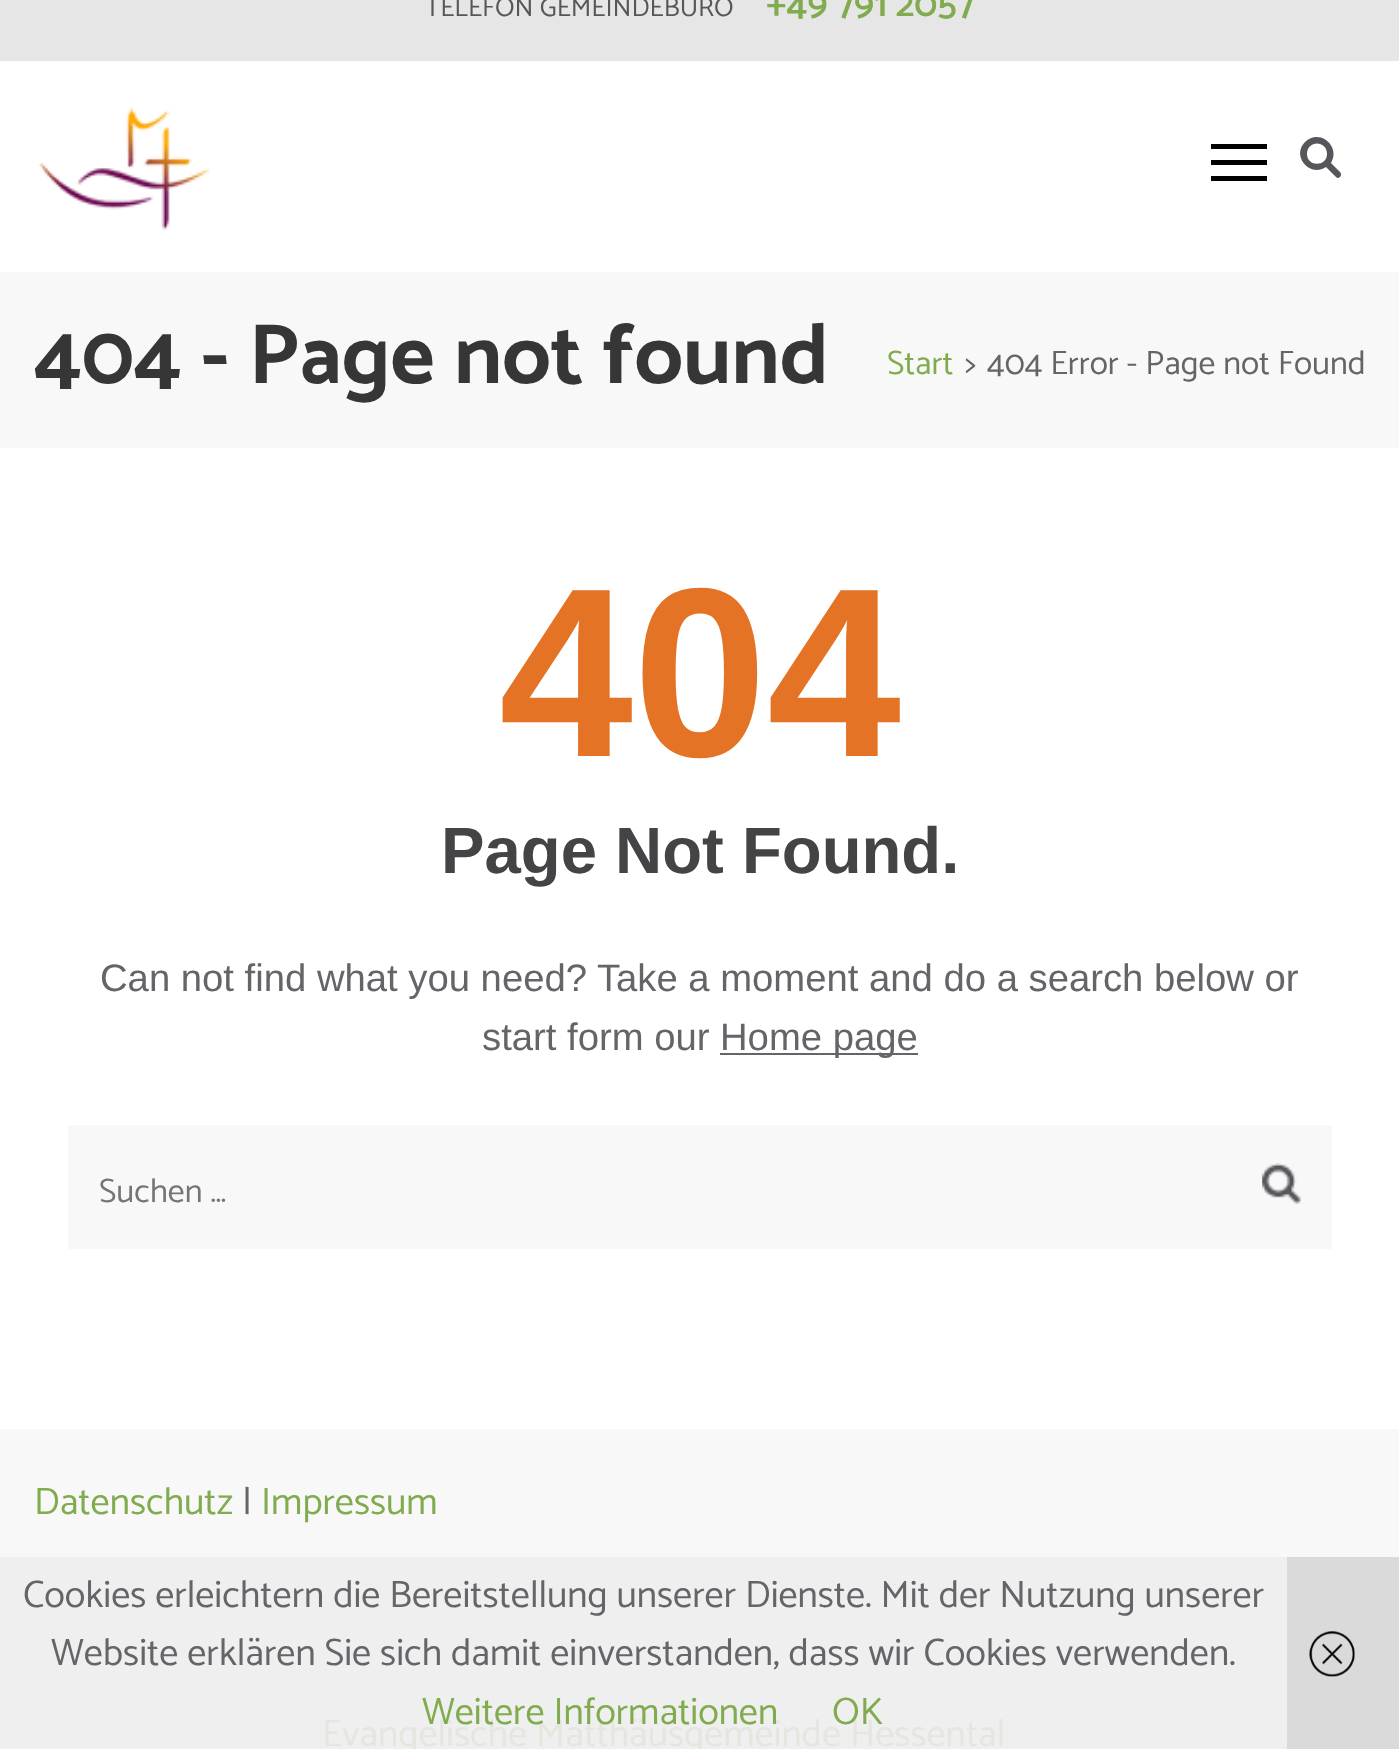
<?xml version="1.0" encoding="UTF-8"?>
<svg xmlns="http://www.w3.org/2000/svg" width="1399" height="1749">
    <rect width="100%" height="100%" fill="#FFFFFF"/>
    <rect x="0" y="0" width="1399" height="61" fill="#E6E6E6"/>
    <text x="425" y="16" font-family="Catamaran" font-size="27" fill="#56575A">TELEFON GEMEINDEBÜRO</text>
    <text x="766" y="16" font-family="Catamaran" font-size="38.25" font-weight="600" fill="#80AB4E">+49 791 2057</text>
    <image x="38" y="107" width="172" height="123" href="img_01.png"/>
    <rect x="1211" y="144" width="56" height="5" fill="#000000"/>
    <rect x="1211" y="160" width="56" height="5" fill="#000000"/>
    <rect x="1211" y="176" width="56" height="5" fill="#000000"/>
    <path d="M 1340 172 L 1331 163 C 1341 147 1320 128 1305 142 C 1291 156 1310 178 1326 167 L 1336 177 C 1339 180 1343 175 1340 172 Z M 1307 154 C 1307 140 1327 140 1327 154 C 1327 167 1307 167 1307 154 Z" fill="#56575A"/>
    <rect x="0" y="272" width="1399" height="176" fill="#F8F8F8"/>
    <text x="34" y="383" font-family="Catamaran" font-size="85.5" font-weight="700" fill="#363636">404 - Page not found</text>
    <text x="887" y="374" font-family="Catamaran" font-size="33.75" fill="#80AB4E">Start</text>
    <text x="965" y="374" font-family="Catamaran" font-size="33.75" fill="#646569">&gt;</text>
    <text x="987" y="374" font-family="Catamaran" font-size="33.75" fill="#646569">404 Error - Page not Found</text>
    <text x="499" y="756" font-family="Liberation Sans" font-size="241" font-weight="700" fill="#E57326">404</text>
    <text x="441" y="873" font-family="Liberation Sans" font-size="65.25" font-weight="700" fill="#444447">Page Not Found.</text>
    <text x="100" y="991" font-family="Liberation Sans" font-size="38.25" fill="#646569">Can not find what you need? Take a moment and do a search below or</text>
    <text x="482" y="1050" font-family="Liberation Sans" font-size="38.25" fill="#646569">start form our</text>
    <rect x="720" y="1053" width="198" height="2" fill="#646569"/>
    <text x="720" y="1050" font-family="Liberation Sans" font-size="38.25" fill="#646569">Home page</text>
    <rect x="68" y="1125" width="1264" height="124" fill="#F8F8F8"/>
    <text x="99" y="1202" font-family="Catamaran" font-size="33.75" fill="#757575">Suchen …</text>
    <image x="1262" y="1163" width="39" height="41" href="img_02.png"/>
    <rect x="0" y="1429" width="1399" height="128" fill="#F8F8F8"/>
    <rect x="0" y="1557" width="1399" height="192" fill="#EFEFEF"/>
    <text x="34" y="1514" font-family="Catamaran" font-size="38.25" fill="#80AB4E">Datenschutz</text>
    <text x="242" y="1514" font-family="Catamaran" font-size="38.25" fill="#646569">|</text>
    <text x="261" y="1514" font-family="Catamaran" font-size="38.25" fill="#80AB4E">Impressum</text>
    <text x="322" y="1746" font-family="Catamaran" font-size="38.25" fill="#E3E7DE">Evangelische Matthäusgemeinde Hessental</text>
    <text x="23" y="1607" font-family="Catamaran" font-size="38.25" fill="#646569">Cookies erleichtern die Bereitstellung unserer Dienste. Mit der Nutzung unserer</text>
    <text x="51" y="1665" font-family="Catamaran" font-size="38.25" fill="#646569">Website erklären Sie sich damit einverstanden, dass wir Cookies verwenden.</text>
    <text x="422" y="1724" font-family="Catamaran" font-size="38.25" fill="#80AB4E">Weitere Informationen</text>
    <text x="832" y="1724" font-family="Catamaran" font-size="38.25" fill="#80AB4E">OK</text>
    <rect x="1287" y="1557" width="112" height="192" fill="#CCCCCC" fill-opacity="0.6"/>
    <image x="1309" y="1631" width="46" height="46" href="img_03.png"/>
</svg>
